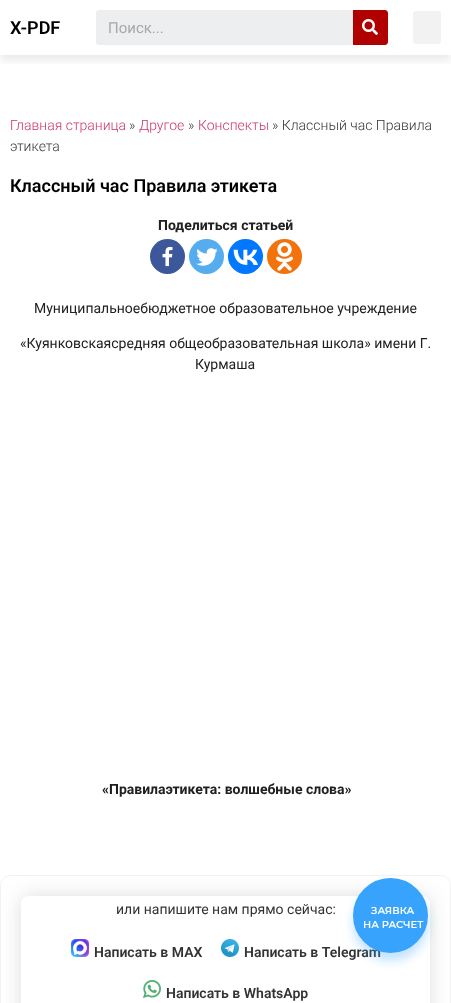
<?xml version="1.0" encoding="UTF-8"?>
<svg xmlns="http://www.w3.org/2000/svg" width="451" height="1003">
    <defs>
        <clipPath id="clip1"><rect x="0" y="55" width="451" height="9"/></clipPath>
        <filter id="blur1" x="-50%" y="-200%" width="200%" height="500%"><feGaussianBlur stdDeviation="5"/></filter>
        <clipPath id="clip2"><path d="M 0 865 H 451 V 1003 H 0 Z M 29 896 H 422 C 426.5 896 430 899.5 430 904 V 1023 C 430 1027.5 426.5 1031 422 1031 H 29 C 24.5 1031 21 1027.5 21 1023 V 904 C 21 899.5 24.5 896 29 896 Z" clip-rule="evenodd"/></clipPath>
        <filter id="blur2" x="-50%" y="-200%" width="200%" height="500%"><feGaussianBlur stdDeviation="10"/></filter>
    </defs>
    <rect width="100%" height="100%" fill="#FFFFFF"/>
    <g clip-path="url(#clip1)">
        <rect x="0" y="5" width="451" height="55" fill="#000000" fill-opacity="0.09" filter="url(#blur1)"/>
    </g>
    <text x="10" y="34" font-family="Roboto" font-size="18" font-weight="600" fill="#000000">X-PDF</text>
    <rect x="96" y="10" width="292" height="35" rx="3" fill="#ECEEEF"/>
    <text x="108" y="33" font-family="Roboto" font-size="15" fill="#A8A8A9">Поиск...</text>
    <path d="M 353 10 H 385 C 386.5 10 388 11.5 388 13 V 42 C 388 43.5 386.5 45 385 45 H 353 Z" fill="#B10000"/>
    <image x="362" y="19" width="16" height="16" href="img_01.png"/>
    <rect x="413" y="11" width="28" height="33" rx="3" fill="#F2F2F2"/>
    <text x="10" y="130" font-family="Roboto" font-size="14" font-weight="300" fill="#CC3366">Главная страница</text>
    <text x="129" y="130" font-family="Roboto" font-size="14" font-weight="300" fill="#333333">»</text>
    <text x="139" y="130" font-family="Roboto" font-size="14" font-weight="300" fill="#CC3366">Другое</text>
    <text x="188" y="130" font-family="Roboto" font-size="14" font-weight="300" fill="#333333">»</text>
    <text x="198" y="130" font-family="Roboto" font-size="14" font-weight="300" fill="#CC3366">Конспекты</text>
    <text x="272" y="130" font-family="Roboto" font-size="14" font-weight="300" fill="#333333">» Классный час Правила</text>
    <text x="10" y="151" font-family="Roboto" font-size="14" font-weight="300" fill="#333333">этикета</text>
    <text x="10" y="192" font-family="Roboto" font-size="18" font-weight="600" fill="#000000">Классный час Правила этикета</text>
    <text x="158" y="230" font-family="Roboto" font-size="14" font-weight="700" fill="#202020">Поделиться статьей</text>
    <circle cx="167.5" cy="256.5" r="17.5" fill="#3C589A"/>
    <image x="162" y="246" width="11" height="21" href="img_02.png"/>
    <circle cx="206.5" cy="256.5" r="17.5" fill="#55ACEE"/>
    <image x="196" y="248" width="22" height="18" href="img_03.png"/>
    <circle cx="245.5" cy="256.5" r="17.5" fill="#0077FF"/>
    <image x="233" y="249" width="25" height="16" href="img_04.png"/>
    <circle cx="284.5" cy="256.5" r="17.5" fill="#F2720C"/>
    <image x="276" y="242" width="17" height="29" href="img_05.png"/>
    <text x="34" y="313" font-family="Roboto" font-size="14" fill="#202020">Муниципальноебюджетное образовательное учреждение</text>
    <text x="20" y="348" font-family="Roboto" font-size="14" fill="#202020">«Куянковскаясредняя общеобразовательная школа» имени Г.</text>
    <text x="195" y="369" font-family="Roboto" font-size="14" fill="#202020">Курмаша</text>
    <text x="102" y="794" font-family="Roboto" font-size="14" font-weight="700" fill="#202020">«Правилаэтикета: волшебные слова»</text>
    <rect x="0.5" y="875.5" width="450" height="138" rx="9.5" fill="none" stroke="#F2F2F2"/>
    <g clip-path="url(#clip2)">
        <rect x="21" y="896" width="409" height="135" rx="8" fill="#000000" fill-opacity="0.13" filter="url(#blur2)"/>
    </g>
    <text x="116" y="914" font-family="Roboto" font-size="14" fill="#333333">или напишите нам прямо сейчас:</text>
    <image x="71" y="939" width="18" height="18" href="img_06.png"/>
    <text x="94" y="957" font-family="Roboto" font-size="14" font-weight="600" fill="#333333">Написать в MAX</text>
    <image x="221" y="939" width="18" height="18" href="img_07.png"/>
    <text x="244" y="957" font-family="Roboto" font-size="14" font-weight="600" fill="#333333">Написать в Telegram</text>
    <image x="143" y="980" width="18" height="18" href="img_08.png"/>
    <text x="166" y="998" font-family="Roboto" font-size="14" font-weight="600" fill="#333333">Написать в WhatsApp</text>
    <rect x="353" y="886" width="75" height="75" rx="37.5" fill="#38A3FD" fill-opacity="0.3" filter="url(#blur1)"/>
    <circle cx="390.5" cy="915.5" r="36.5" fill="#38A3FD" stroke="#38A3FD" stroke-width="2"/>
    <text x="371" y="914" font-family="Montserrat" font-size="10" font-weight="600" fill="#FFFFFF">ЗАЯВКА</text>
    <text x="363" y="928" font-family="Montserrat" font-size="10" font-weight="600" fill="#FFFFFF">НА РАСЧЕТ</text>
</svg>
